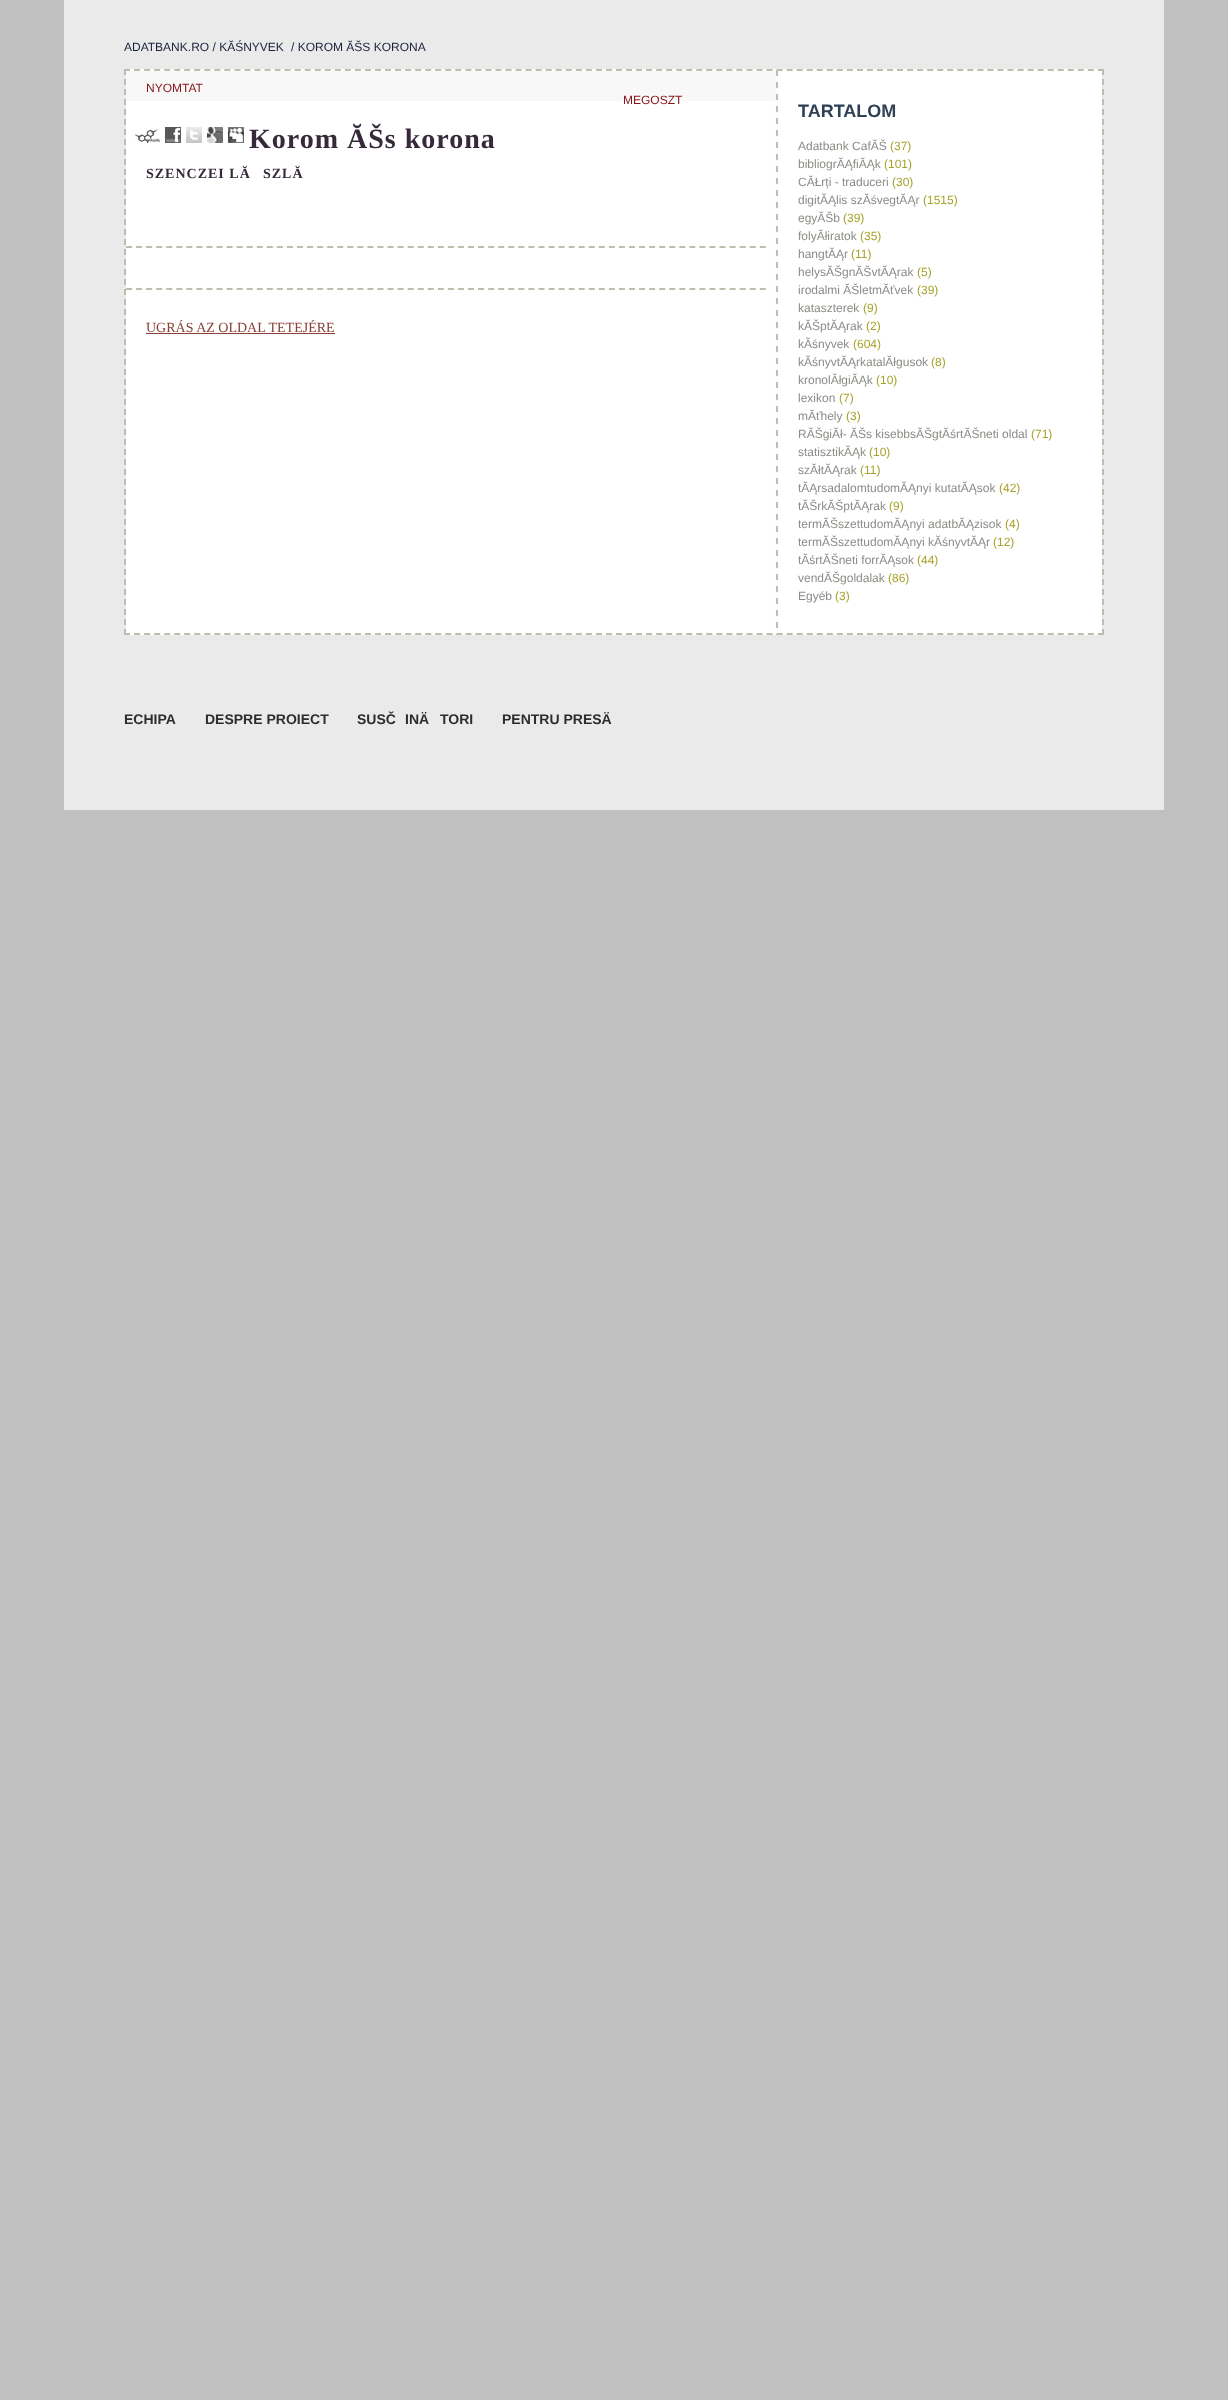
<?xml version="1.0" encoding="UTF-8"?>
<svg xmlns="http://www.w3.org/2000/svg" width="1228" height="2400">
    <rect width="100%" height="100%" fill="#C0C0C0"/>
    <rect x="64" y="0" width="1100" height="810" fill="#EAEAEA"/>
    <text x="124" y="51" font-family="Liberation Sans" font-size="12" fill="#19213B">ADATBANK.RO / KĂŚNYVEK</text>
    <text x="291" y="51" font-family="Liberation Sans" font-size="12" fill="#19213B">/ KOROM ĂŠS KORONA</text>
    <image x="126" y="69" width="976" height="566" href="img_01.png"/>
    <path d="M 124 70 H 1104" fill="none" stroke="#BEBDB0" stroke-width="2" stroke-dasharray="6 4.04"/>
    <path d="M 1103 69 V 635" fill="none" stroke="#BEBDB0" stroke-width="2" stroke-dasharray="6 4"/>
    <path d="M 124 634 H 1104" fill="none" stroke="#BEBDB0" stroke-width="2" stroke-dasharray="6 4.04"/>
    <path d="M 125 69 V 635" fill="none" stroke="#BEBDB0" stroke-width="2" stroke-dasharray="6 4"/>
    <rect x="126" y="71" width="650" height="30" fill="#F8F8F8"/>
    <text x="146" y="92" font-family="Liberation Sans" font-size="12" fill="#851217">NYOMTAT</text>
    <text x="623" y="104" font-family="Liberation Sans" font-size="12" fill="#851217">MEGOSZT</text>
    <image x="132" y="129" width="28" height="14" href="img_02.png"/>
    <image x="165" y="127" width="16" height="16" href="img_03.png"/>
    <image x="186" y="127" width="16" height="16" href="img_04.png"/>
    <image x="207" y="127" width="16" height="16" href="img_05.png"/>
    <image x="228" y="127" width="16" height="16" href="img_06.png"/>
    <path d="M 126 247 H 766" fill="none" stroke="#BEBDB0" stroke-width="2" stroke-dasharray="6 4.06"/>
    <text x="249" y="148" font-family="Liberation Serif" font-size="28" font-weight="700" letter-spacing="1" fill="#35293A">Korom ĂŠs korona</text>
    <text x="146" y="178" font-family="Liberation Serif" font-size="14" font-weight="700" letter-spacing="1" fill="#35293A">SZENCZEI LĂ</text>
    <text x="263" y="178" font-family="Liberation Serif" font-size="14" font-weight="700" letter-spacing="1" fill="#35293A">SZLĂ</text>
    <path d="M 126 289 H 766" fill="none" stroke="#BEBDB0" stroke-width="2" stroke-dasharray="6 4.06"/>
    <text x="146" y="332" font-family="Liberation Serif" font-size="14" fill="#894137">UGRÁS AZ OLDAL TETEJÉRE</text>
    <rect x="146" y="333" width="189" height="1" fill="#894137"/>
    <text x="798" y="117" font-family="Liberation Sans" font-size="18" font-weight="700" fill="#2F4155">TARTALOM</text>
    <text x="798" y="150" font-family="Liberation Sans" font-size="12" fill="#8B8B87">Adatbank CafĂŠ</text>
    <text x="890" y="150" font-family="Liberation Sans" font-size="12" fill="#A7A22C">(37)</text>
    <text x="798" y="168" font-family="Liberation Sans" font-size="12" fill="#8B8B87">bibliogrĂĄfiĂĄk</text>
    <text x="884" y="168" font-family="Liberation Sans" font-size="12" fill="#A7A22C">(101)</text>
    <text x="798" y="186" font-family="Liberation Sans" font-size="12" fill="#8B8B87">CĂŁrți - traduceri</text>
    <text x="892" y="186" font-family="Liberation Sans" font-size="12" fill="#A7A22C">(30)</text>
    <text x="798" y="204" font-family="Liberation Sans" font-size="12" fill="#8B8B87">digitĂĄlis szĂśvegtĂĄr</text>
    <text x="923" y="204" font-family="Liberation Sans" font-size="12" fill="#A7A22C">(1515)</text>
    <text x="798" y="222" font-family="Liberation Sans" font-size="12" fill="#8B8B87">egyĂŠb</text>
    <text x="843" y="222" font-family="Liberation Sans" font-size="12" fill="#A7A22C">(39)</text>
    <text x="798" y="240" font-family="Liberation Sans" font-size="12" fill="#8B8B87">folyĂłiratok</text>
    <text x="860" y="240" font-family="Liberation Sans" font-size="12" fill="#A7A22C">(35)</text>
    <text x="798" y="258" font-family="Liberation Sans" font-size="12" fill="#8B8B87">hangtĂĄr</text>
    <text x="851" y="258" font-family="Liberation Sans" font-size="12" fill="#A7A22C">(11)</text>
    <text x="798" y="276" font-family="Liberation Sans" font-size="12" fill="#8B8B87">helysĂŠgnĂŠvtĂĄrak</text>
    <text x="917" y="276" font-family="Liberation Sans" font-size="12" fill="#A7A22C">(5)</text>
    <text x="798" y="294" font-family="Liberation Sans" font-size="12" fill="#8B8B87">irodalmi ĂŠletmĂťvek</text>
    <text x="917" y="294" font-family="Liberation Sans" font-size="12" fill="#A7A22C">(39)</text>
    <text x="798" y="312" font-family="Liberation Sans" font-size="12" fill="#8B8B87">kataszterek</text>
    <text x="863" y="312" font-family="Liberation Sans" font-size="12" fill="#A7A22C">(9)</text>
    <text x="798" y="330" font-family="Liberation Sans" font-size="12" fill="#8B8B87">kĂŠptĂĄrak</text>
    <text x="866" y="330" font-family="Liberation Sans" font-size="12" fill="#A7A22C">(2)</text>
    <text x="798" y="348" font-family="Liberation Sans" font-size="12" fill="#8B8B87">kĂśnyvek</text>
    <text x="853" y="348" font-family="Liberation Sans" font-size="12" fill="#A7A22C">(604)</text>
    <text x="798" y="366" font-family="Liberation Sans" font-size="12" fill="#8B8B87">kĂśnyvtĂĄrkatalĂłgusok</text>
    <text x="931" y="366" font-family="Liberation Sans" font-size="12" fill="#A7A22C">(8)</text>
    <text x="798" y="384" font-family="Liberation Sans" font-size="12" fill="#8B8B87">kronolĂłgiĂĄk</text>
    <text x="876" y="384" font-family="Liberation Sans" font-size="12" fill="#A7A22C">(10)</text>
    <text x="798" y="402" font-family="Liberation Sans" font-size="12" fill="#8B8B87">lexikon</text>
    <text x="839" y="402" font-family="Liberation Sans" font-size="12" fill="#A7A22C">(7)</text>
    <text x="798" y="420" font-family="Liberation Sans" font-size="12" fill="#8B8B87">mĂťhely</text>
    <text x="846" y="420" font-family="Liberation Sans" font-size="12" fill="#A7A22C">(3)</text>
    <text x="798" y="438" font-family="Liberation Sans" font-size="12" fill="#8B8B87">RĂŠgiĂł- ĂŠs kisebbsĂŠgtĂśrtĂŠneti oldal</text>
    <text x="1031" y="438" font-family="Liberation Sans" font-size="12" fill="#A7A22C">(71)</text>
    <text x="798" y="456" font-family="Liberation Sans" font-size="12" fill="#8B8B87">statisztikĂĄk</text>
    <text x="869" y="456" font-family="Liberation Sans" font-size="12" fill="#A7A22C">(10)</text>
    <text x="798" y="474" font-family="Liberation Sans" font-size="12" fill="#8B8B87">szĂłtĂĄrak</text>
    <text x="860" y="474" font-family="Liberation Sans" font-size="12" fill="#A7A22C">(11)</text>
    <text x="798" y="492" font-family="Liberation Sans" font-size="12" fill="#8B8B87">tĂĄrsadalomtudomĂĄnyi kutatĂĄsok</text>
    <text x="999" y="492" font-family="Liberation Sans" font-size="12" fill="#A7A22C">(42)</text>
    <text x="798" y="510" font-family="Liberation Sans" font-size="12" fill="#8B8B87">tĂŠrkĂŠptĂĄrak</text>
    <text x="889" y="510" font-family="Liberation Sans" font-size="12" fill="#A7A22C">(9)</text>
    <text x="798" y="528" font-family="Liberation Sans" font-size="12" fill="#8B8B87">termĂŠszettudomĂĄnyi adatbĂĄzisok</text>
    <text x="1005" y="528" font-family="Liberation Sans" font-size="12" fill="#A7A22C">(4)</text>
    <text x="798" y="546" font-family="Liberation Sans" font-size="12" fill="#8B8B87">termĂŠszettudomĂĄnyi kĂśnyvtĂĄr</text>
    <text x="993" y="546" font-family="Liberation Sans" font-size="12" fill="#A7A22C">(12)</text>
    <text x="798" y="564" font-family="Liberation Sans" font-size="12" fill="#8B8B87">tĂśrtĂŠneti forrĂĄsok</text>
    <text x="917" y="564" font-family="Liberation Sans" font-size="12" fill="#A7A22C">(44)</text>
    <text x="798" y="582" font-family="Liberation Sans" font-size="12" fill="#8B8B87">vendĂŠgoldalak</text>
    <text x="888" y="582" font-family="Liberation Sans" font-size="12" fill="#A7A22C">(86)</text>
    <text x="798" y="600" font-family="Liberation Sans" font-size="12" fill="#8B8B87">Egyéb</text>
    <text x="835" y="600" font-family="Liberation Sans" font-size="12" fill="#A7A22C">(3)</text>
    <text x="124" y="724" font-family="Liberation Sans" font-size="14" font-weight="700" fill="#2D2D2D">ECHIPA</text>
    <text x="205" y="724" font-family="Liberation Sans" font-size="14" font-weight="700" fill="#2D2D2D">DESPRE PROIECT</text>
    <text x="357" y="724" font-family="Liberation Sans" font-size="14" font-weight="700" fill="#2D2D2D">SUSČ</text>
    <text x="405" y="724" font-family="Liberation Sans" font-size="14" font-weight="700" fill="#2D2D2D">INÄ</text>
    <text x="440" y="724" font-family="Liberation Sans" font-size="14" font-weight="700" fill="#2D2D2D">TORI</text>
    <text x="502" y="724" font-family="Liberation Sans" font-size="14" font-weight="700" fill="#2D2D2D">PENTRU PRESÄ</text>
</svg>
